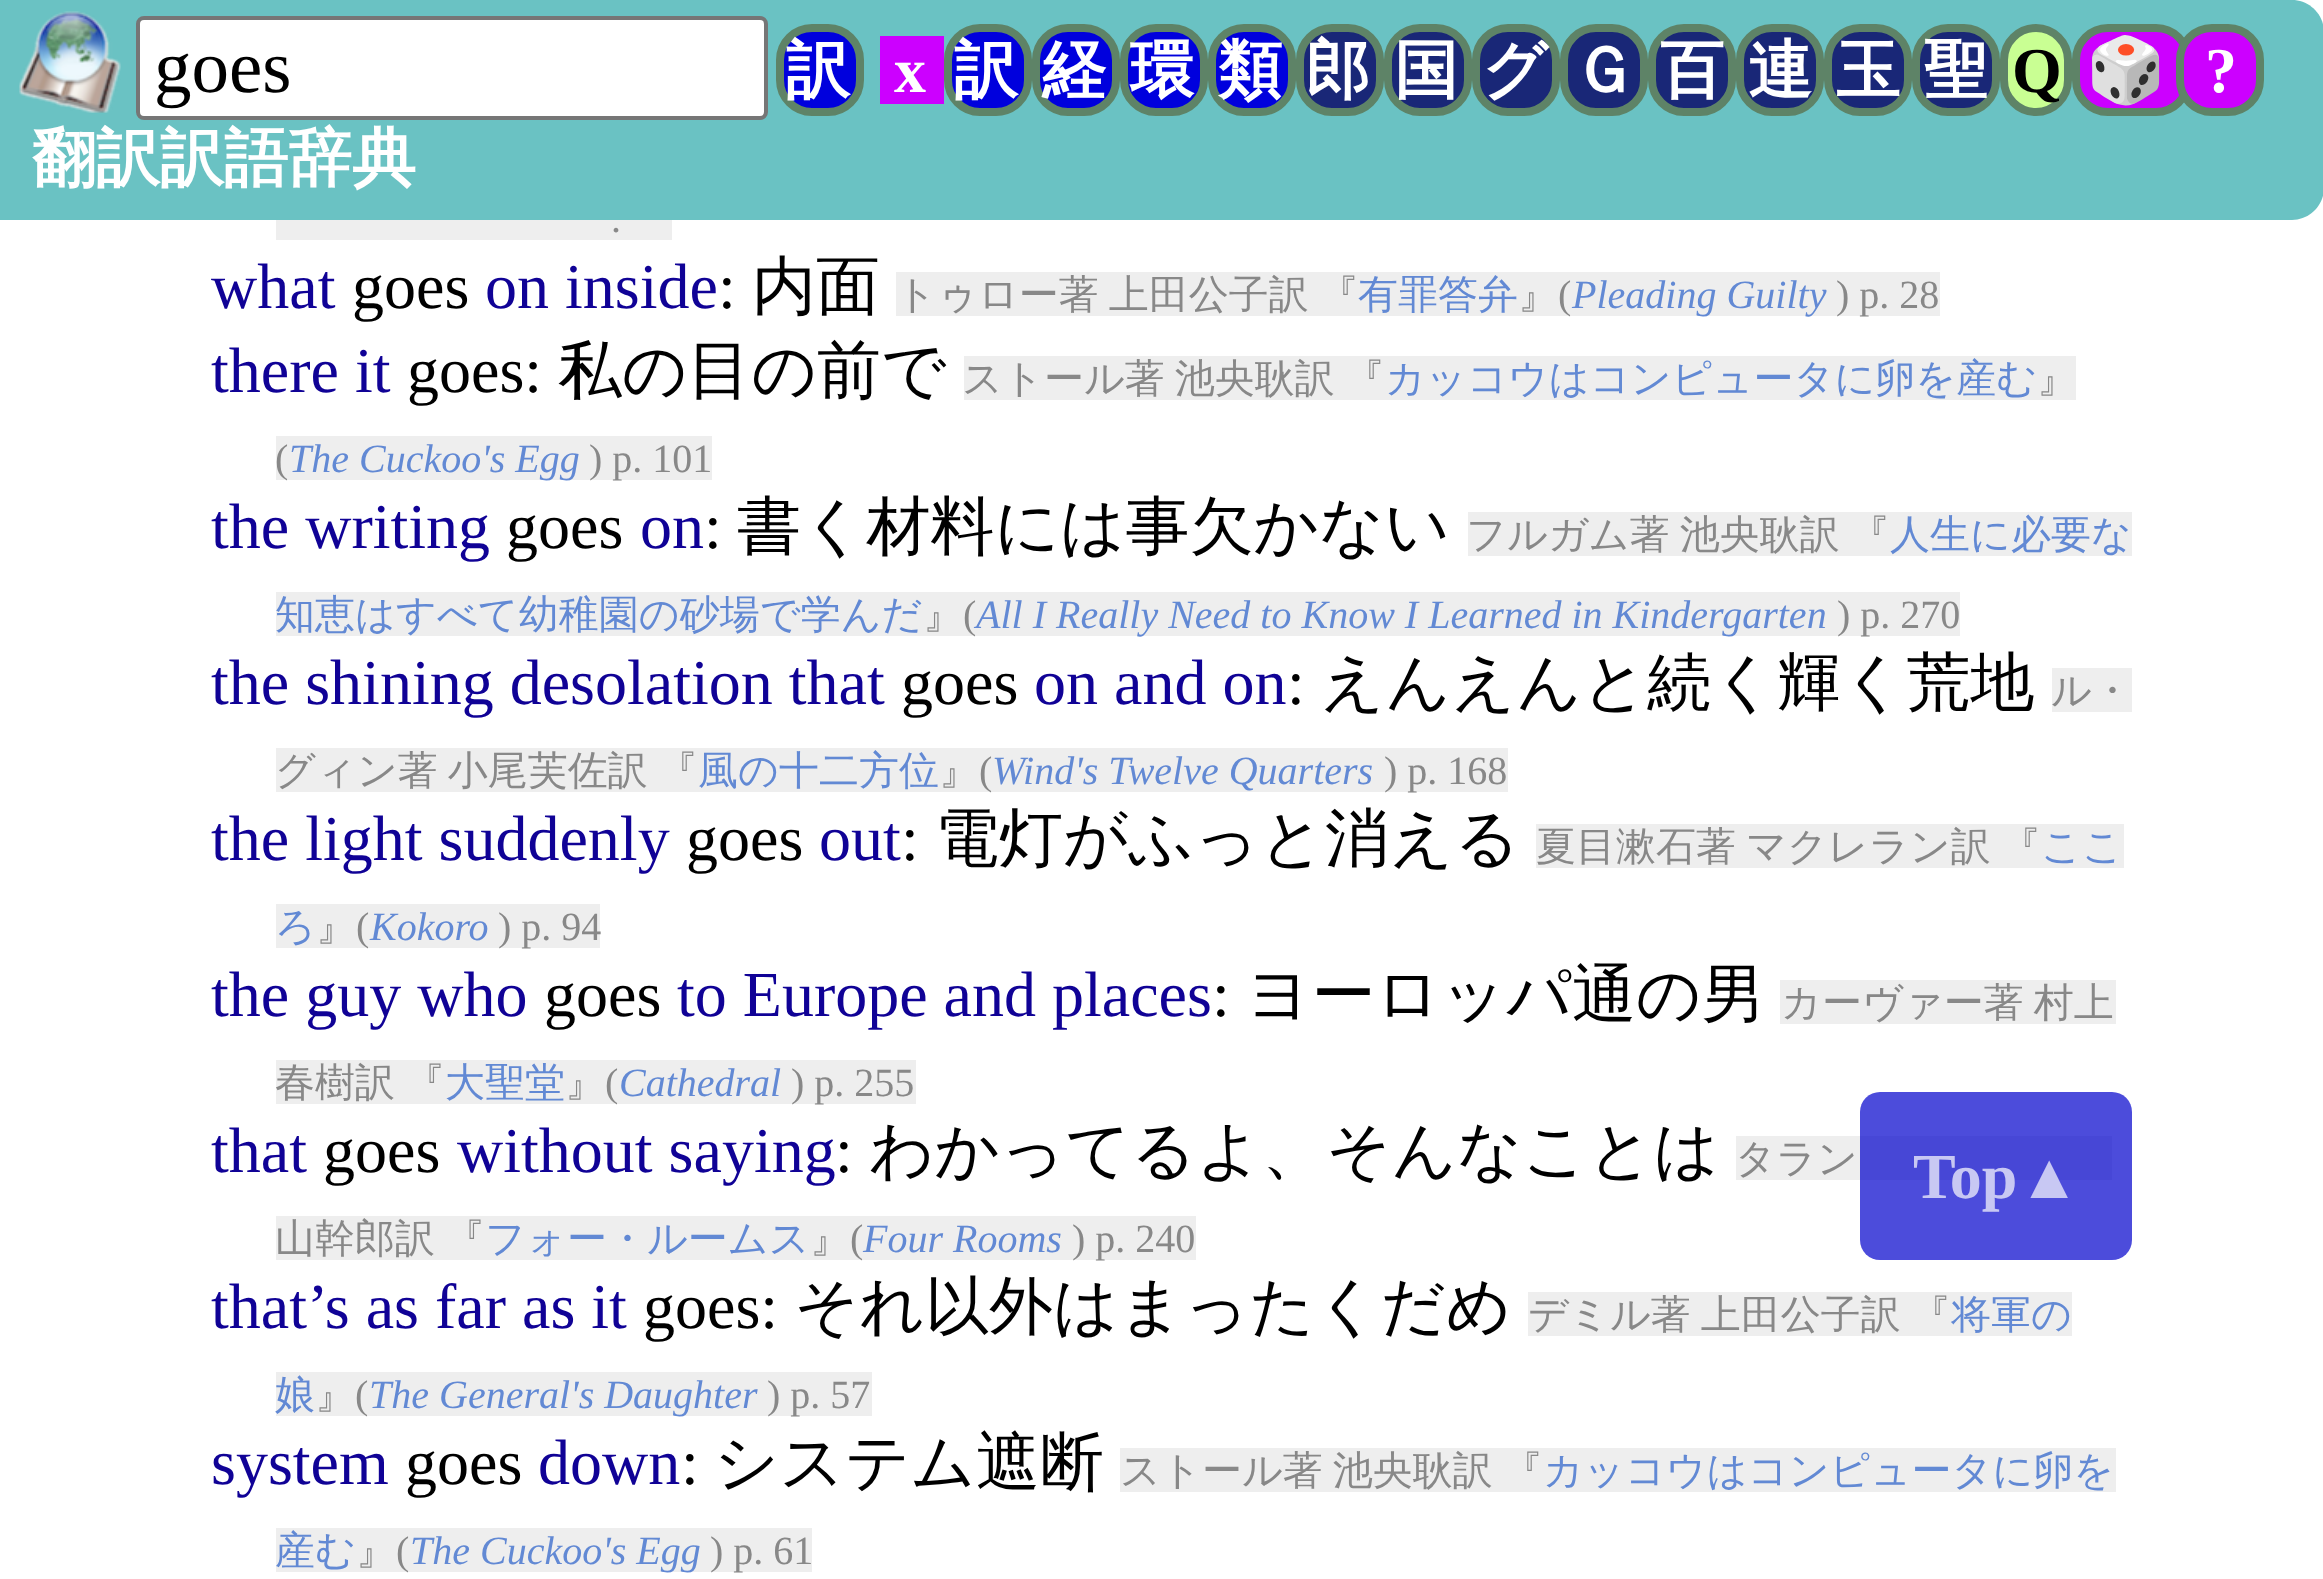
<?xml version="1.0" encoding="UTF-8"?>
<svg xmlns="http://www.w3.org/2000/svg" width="2323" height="1579">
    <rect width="100%" height="100%" fill="#FFFFFF"/>
    <path d="M 0 0 H 2292 C 2309.5 0 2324 14.5 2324 32 V 188 C 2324 205.5 2309.5 220 2292 220 H 0 Z" fill="#6AC2C3"/>
    <image x="19" y="11" width="102" height="102" href="img_01.png"/>
    <rect x="138" y="18" width="628" height="100" rx="6" fill="#FFFFFF" stroke="#767676" stroke-width="4"/>
    <text x="154" y="92" font-family="Liberation Serif" font-size="75" fill="#000000">goes</text>
    <rect x="780" y="28" width="80" height="84" rx="32" fill="#0000DD" stroke="#5E8367" stroke-width="8"/>
    <text x="786" y="92" font-family="WenQuanYi Zen Hei" font-size="64" font-weight="700" fill="#FFFFFF">訳</text>
    <rect x="880" y="36" width="64" height="68" fill="#CC00FF"/>
    <text x="894" y="92" font-family="Liberation Serif" font-size="64" font-weight="700" fill="#FFFFFF">x</text>
    <rect x="948" y="28" width="80" height="84" rx="32" fill="#0000DD" stroke="#5E8367" stroke-width="8"/>
    <text x="954" y="92" font-family="WenQuanYi Zen Hei" font-size="64" font-weight="700" fill="#FFFFFF">訳</text>
    <rect x="1036" y="28" width="80" height="84" rx="32" fill="#0000DD" stroke="#5E8367" stroke-width="8"/>
    <text x="1042" y="92" font-family="WenQuanYi Zen Hei" font-size="64" font-weight="700" fill="#FFFFFF">経</text>
    <rect x="1124" y="28" width="80" height="84" rx="32" fill="#0000DD" stroke="#5E8367" stroke-width="8"/>
    <text x="1130" y="92" font-family="WenQuanYi Zen Hei" font-size="64" font-weight="700" fill="#FFFFFF">環</text>
    <rect x="1212" y="28" width="80" height="84" rx="32" fill="#0000DD" stroke="#5E8367" stroke-width="8"/>
    <text x="1218" y="92" font-family="WenQuanYi Zen Hei" font-size="64" font-weight="700" fill="#FFFFFF">類</text>
    <rect x="1300" y="28" width="80" height="84" rx="32" fill="#192777" stroke="#5E8367" stroke-width="8"/>
    <text x="1306" y="92" font-family="WenQuanYi Zen Hei" font-size="64" font-weight="700" fill="#FFFFFF">郎</text>
    <rect x="1388" y="28" width="80" height="84" rx="32" fill="#192777" stroke="#5E8367" stroke-width="8"/>
    <text x="1394" y="92" font-family="WenQuanYi Zen Hei" font-size="64" font-weight="700" fill="#FFFFFF">国</text>
    <rect x="1476" y="28" width="80" height="84" rx="32" fill="#192777" stroke="#5E8367" stroke-width="8"/>
    <text x="1482" y="92" font-family="WenQuanYi Zen Hei" font-size="64" font-weight="700" fill="#FFFFFF">グ</text>
    <rect x="1564" y="28" width="80" height="84" rx="32" fill="#192777" stroke="#5E8367" stroke-width="8"/>
    <text x="1572" y="92" font-family="WenQuanYi Zen Hei" font-size="64" font-weight="700" fill="#FFFFFF">Ｇ</text>
    <rect x="1652" y="28" width="80" height="84" rx="32" fill="#192777" stroke="#5E8367" stroke-width="8"/>
    <text x="1660" y="92" font-family="WenQuanYi Zen Hei" font-size="64" font-weight="700" fill="#FFFFFF">百</text>
    <rect x="1740" y="28" width="80" height="84" rx="32" fill="#192777" stroke="#5E8367" stroke-width="8"/>
    <text x="1748" y="92" font-family="WenQuanYi Zen Hei" font-size="64" font-weight="700" fill="#FFFFFF">連</text>
    <rect x="1828" y="28" width="80" height="84" rx="32" fill="#192777" stroke="#5E8367" stroke-width="8"/>
    <text x="1836" y="92" font-family="WenQuanYi Zen Hei" font-size="64" font-weight="700" fill="#FFFFFF">玉</text>
    <rect x="1916" y="28" width="80" height="84" rx="32" fill="#192777" stroke="#5E8367" stroke-width="8"/>
    <text x="1924" y="92" font-family="WenQuanYi Zen Hei" font-size="64" font-weight="700" fill="#FFFFFF">聖</text>
    <rect x="2004" y="28" width="64" height="84" rx="32" fill="#C9FF93" stroke="#5E8367" stroke-width="8"/>
    <text x="2012" y="92" font-family="Liberation Serif" font-size="64" font-weight="700" fill="#000000">Q</text>
    <rect x="2076" y="28" width="112" height="84" rx="32" fill="#CC00FF" stroke="#5E8367" stroke-width="8"/>
    <text x="2086" y="92" font-family="Noto Color Emoji" font-size="64" font-weight="700" fill="#FFFFFF">🎲</text>
    <rect x="2180" y="28" width="80" height="84" rx="32" fill="#CC00FF" stroke="#5E8367" stroke-width="8"/>
    <text x="2205" y="92" font-family="Liberation Serif" font-size="64" font-weight="700" fill="#FFFFFF">?</text>
    <text x="32" y="180" font-family="WenQuanYi Zen Hei" font-size="64" font-weight="700" fill="#FFFFFF">翻訳訳語辞典</text>
    <rect x="276" y="220" width="396" height="20" fill="#EEEEEE"/>
    <text x="611" y="232" font-family="Liberation Serif" font-size="40" fill="#888888">.</text>
    <text x="211" y="308" font-family="Liberation Serif" font-size="64" fill="#100296">what</text>
    <text x="352" y="308" font-family="Liberation Serif" font-size="64" fill="#000000">goes</text>
    <text x="485" y="308" font-family="Liberation Serif" font-size="64" fill="#100296">on inside</text>
    <text x="718" y="308" font-family="Liberation Serif" font-size="64" fill="#000000">:</text>
    <text x="752" y="308" font-family="WenQuanYi Zen Hei" font-size="64" font-weight="500" fill="#000000">内面</text>
    <rect x="896" y="272" width="1044" height="44" fill="#EEEEEE"/>
    <text x="896" y="308" word-spacing="-2" font-family="WenQuanYi Zen Hei" font-size="40" font-weight="500" fill="#888888">トゥロー著 上田公子訳 『</text>
    <text x="1358" y="308" font-family="WenQuanYi Zen Hei" font-size="40" font-weight="500" fill="#6289D4">有罪答弁</text>
    <text x="1518" y="308" font-family="WenQuanYi Zen Hei" font-size="40" font-weight="500" fill="#888888">』</text>
    <text x="1558" y="308" font-family="Liberation Serif" font-size="40" fill="#888888">(</text>
    <text x="1572" y="308" font-family="Liberation Serif" font-size="40" font-style="italic" fill="#6289D4">Pleading Guilty</text>
    <text x="1836" y="308" font-family="Liberation Serif" font-size="40" fill="#888888">) p. 28</text>
    <text x="211" y="392" font-family="Liberation Serif" font-size="64" fill="#100296">there it</text>
    <text x="407" y="392" font-family="Liberation Serif" font-size="64" fill="#000000">goes:</text>
    <text x="558" y="392" font-family="WenQuanYi Zen Hei" font-size="64" font-weight="500" fill="#000000">私の目の前で</text>
    <rect x="964" y="356" width="1112" height="44" fill="#EEEEEE"/>
    <text x="962" y="392" word-spacing="-2" font-family="WenQuanYi Zen Hei" font-size="40" font-weight="500" fill="#888888">ストール著 池央耿訳 『</text>
    <text x="1385" y="392" font-family="WenQuanYi Zen Hei" font-size="40" font-weight="500" fill="#6289D4">カッコウはコンピュータに卵を産む</text>
    <text x="2037" y="392" font-family="WenQuanYi Zen Hei" font-size="40" font-weight="500" fill="#888888">』</text>
    <rect x="276" y="436" width="436" height="44" fill="#EEEEEE"/>
    <text x="275" y="472" font-family="Liberation Serif" font-size="40" fill="#888888">(</text>
    <text x="289" y="472" font-family="Liberation Serif" font-size="40" font-style="italic" fill="#6289D4">The Cuckoo's Egg</text>
    <text x="589" y="472" font-family="Liberation Serif" font-size="40" fill="#888888">) p. 101</text>
    <text x="211" y="548" font-family="Liberation Serif" font-size="64" fill="#100296">the writing</text>
    <text x="506" y="548" font-family="Liberation Serif" font-size="64" fill="#000000">goes</text>
    <text x="640" y="548" font-family="Liberation Serif" font-size="64" fill="#100296">on</text>
    <text x="704" y="548" font-family="Liberation Serif" font-size="64" fill="#000000">:</text>
    <text x="737" y="548" font-family="WenQuanYi Zen Hei" font-size="64" font-weight="500" fill="#000000">書く材料には事欠かない</text>
    <rect x="1468" y="512" width="664" height="44" fill="#EEEEEE"/>
    <text x="1466" y="548" word-spacing="-2" font-family="WenQuanYi Zen Hei" font-size="40" font-weight="500" fill="#888888">フルガム著 池央耿訳 『</text>
    <text x="1890" y="548" font-family="WenQuanYi Zen Hei" font-size="40" font-weight="500" fill="#6289D4">人生に必要な</text>
    <rect x="276" y="592" width="1684" height="44" fill="#EEEEEE"/>
    <text x="275" y="628" font-family="WenQuanYi Zen Hei" font-size="40" font-weight="500" fill="#6289D4">知恵はすべて幼稚園の砂場で学んだ</text>
    <text x="923" y="628" font-family="WenQuanYi Zen Hei" font-size="40" font-weight="500" fill="#888888">』</text>
    <text x="963" y="628" font-family="Liberation Serif" font-size="40" fill="#888888">(</text>
    <text x="976" y="628" font-family="Liberation Serif" font-size="40" font-style="italic" fill="#6289D4">All I Really Need to Know I Learned in Kindergarten</text>
    <text x="1837" y="628" font-family="Liberation Serif" font-size="40" fill="#888888">) p. 270</text>
    <text x="211" y="704" font-family="Liberation Serif" font-size="64" fill="#100296">the shining desolation that</text>
    <text x="901" y="704" font-family="Liberation Serif" font-size="64" fill="#000000">goes</text>
    <text x="1034" y="704" font-family="Liberation Serif" font-size="64" fill="#100296">on and on</text>
    <text x="1287" y="704" font-family="Liberation Serif" font-size="64" fill="#000000">:</text>
    <text x="1320" y="704" font-family="WenQuanYi Zen Hei" font-size="64" font-weight="500" fill="#000000">えんえんと続く輝く荒地</text>
    <rect x="2052" y="668" width="80" height="44" fill="#EEEEEE"/>
    <text x="2051" y="704" font-family="WenQuanYi Zen Hei" font-size="40" font-weight="500" fill="#888888">ル・</text>
    <rect x="276" y="748" width="1232" height="44" fill="#EEEEEE"/>
    <text x="275" y="784" word-spacing="-2" font-family="WenQuanYi Zen Hei" font-size="40" font-weight="500" fill="#888888">グィン著 小尾芙佐訳 『</text>
    <text x="698" y="784" font-family="WenQuanYi Zen Hei" font-size="40" font-weight="500" fill="#6289D4">風の十二方位</text>
    <text x="939" y="784" font-family="WenQuanYi Zen Hei" font-size="40" font-weight="500" fill="#888888">』</text>
    <text x="979" y="784" font-family="Liberation Serif" font-size="40" fill="#888888">(</text>
    <text x="992" y="784" font-family="Liberation Serif" font-size="40" font-style="italic" fill="#6289D4">Wind's Twelve Quarters</text>
    <text x="1384" y="784" font-family="Liberation Serif" font-size="40" fill="#888888">) p. 168</text>
    <text x="211" y="860" font-family="Liberation Serif" font-size="64" fill="#100296">the light suddenly</text>
    <text x="686" y="860" font-family="Liberation Serif" font-size="64" fill="#000000">goes</text>
    <text x="819" y="860" font-family="Liberation Serif" font-size="64" fill="#100296">out</text>
    <text x="901" y="860" font-family="Liberation Serif" font-size="64" fill="#000000">:</text>
    <text x="935" y="860" font-family="WenQuanYi Zen Hei" font-size="64" font-weight="500" fill="#000000">電灯がふっと消える</text>
    <rect x="1536" y="824" width="588" height="44" fill="#EEEEEE"/>
    <text x="1536" y="860" word-spacing="-2" font-family="WenQuanYi Zen Hei" font-size="40" font-weight="500" fill="#888888">夏目漱石著 マクレラン訳 『</text>
    <text x="2041" y="860" font-family="WenQuanYi Zen Hei" font-size="40" font-weight="500" fill="#6289D4">ここ</text>
    <rect x="276" y="904" width="324" height="44" fill="#EEEEEE"/>
    <text x="275" y="940" font-family="WenQuanYi Zen Hei" font-size="40" font-weight="500" fill="#6289D4">ろ</text>
    <text x="316" y="940" font-family="WenQuanYi Zen Hei" font-size="40" font-weight="500" fill="#888888">』</text>
    <text x="356" y="940" font-family="Liberation Serif" font-size="40" fill="#888888">(</text>
    <text x="370" y="940" font-family="Liberation Serif" font-size="40" font-style="italic" fill="#6289D4">Kokoro</text>
    <text x="498" y="940" font-family="Liberation Serif" font-size="40" fill="#888888">) p. 94</text>
    <text x="211" y="1016" font-family="Liberation Serif" font-size="64" fill="#100296">the guy who</text>
    <text x="544" y="1016" font-family="Liberation Serif" font-size="64" fill="#000000">goes</text>
    <text x="677" y="1016" font-family="Liberation Serif" font-size="64" fill="#100296">to Europe and places</text>
    <text x="1212" y="1016" font-family="Liberation Serif" font-size="64" fill="#000000">:</text>
    <text x="1246" y="1016" font-family="WenQuanYi Zen Hei" font-size="64" font-weight="500" fill="#000000">ヨーロッパ通の男</text>
    <rect x="1780" y="980" width="336" height="44" fill="#EEEEEE"/>
    <text x="1781" y="1016" word-spacing="-2" font-family="WenQuanYi Zen Hei" font-size="40" font-weight="500" fill="#888888">カーヴァー著 村上</text>
    <rect x="276" y="1060" width="640" height="44" fill="#EEEEEE"/>
    <text x="275" y="1096" word-spacing="-2" font-family="WenQuanYi Zen Hei" font-size="40" font-weight="500" fill="#888888">春樹訳 『</text>
    <text x="445" y="1096" font-family="WenQuanYi Zen Hei" font-size="40" font-weight="500" fill="#6289D4">大聖堂</text>
    <text x="565" y="1096" font-family="WenQuanYi Zen Hei" font-size="40" font-weight="500" fill="#888888">』</text>
    <text x="605" y="1096" font-family="Liberation Serif" font-size="40" fill="#888888">(</text>
    <text x="619" y="1096" font-family="Liberation Serif" font-size="40" font-style="italic" fill="#6289D4">Cathedral</text>
    <text x="791" y="1096" font-family="Liberation Serif" font-size="40" fill="#888888">) p. 255</text>
    <text x="211" y="1172" font-family="Liberation Serif" font-size="64" fill="#100296">that</text>
    <text x="323" y="1172" font-family="Liberation Serif" font-size="64" fill="#000000">goes</text>
    <text x="457" y="1172" font-family="Liberation Serif" font-size="64" fill="#100296">without saying</text>
    <text x="835" y="1172" font-family="Liberation Serif" font-size="64" fill="#000000">:</text>
    <text x="869" y="1172" font-family="WenQuanYi Zen Hei" font-size="64" font-weight="500" fill="#000000">わかってるよ、そんなことは</text>
    <rect x="1736" y="1136" width="376" height="44" fill="#EEEEEE"/>
    <text x="1735" y="1172" word-spacing="-2" font-family="WenQuanYi Zen Hei" font-size="40" font-weight="500" fill="#888888">タラン</text>
    <rect x="276" y="1216" width="920" height="44" fill="#EEEEEE"/>
    <text x="275" y="1252" word-spacing="-2" font-family="WenQuanYi Zen Hei" font-size="40" font-weight="500" fill="#888888">山幹郎訳 『</text>
    <text x="485" y="1252" font-family="WenQuanYi Zen Hei" font-size="40" font-weight="500" fill="#6289D4">フォー・ルームス</text>
    <text x="810" y="1252" font-family="WenQuanYi Zen Hei" font-size="40" font-weight="500" fill="#888888">』</text>
    <text x="850" y="1252" font-family="Liberation Serif" font-size="40" fill="#888888">(</text>
    <text x="863" y="1252" font-family="Liberation Serif" font-size="40" font-style="italic" fill="#6289D4">Four Rooms</text>
    <text x="1072" y="1252" font-family="Liberation Serif" font-size="40" fill="#888888">) p. 240</text>
    <text x="211" y="1328" font-family="Liberation Serif" font-size="64" fill="#100296">that’s as far as it</text>
    <text x="643" y="1328" font-family="Liberation Serif" font-size="64" fill="#000000">goes:</text>
    <text x="794" y="1328" font-family="WenQuanYi Zen Hei" font-size="64" font-weight="500" fill="#000000">それ以外はまったくだめ</text>
    <rect x="1528" y="1292" width="544" height="44" fill="#EEEEEE"/>
    <text x="1528" y="1328" word-spacing="-2" font-family="WenQuanYi Zen Hei" font-size="40" font-weight="500" fill="#888888">デミル著 上田公子訳 『</text>
    <text x="1951" y="1328" font-family="WenQuanYi Zen Hei" font-size="40" font-weight="500" fill="#6289D4">将軍の</text>
    <rect x="276" y="1372" width="596" height="44" fill="#EEEEEE"/>
    <text x="275" y="1408" font-family="WenQuanYi Zen Hei" font-size="40" font-weight="500" fill="#6289D4">娘</text>
    <text x="315" y="1408" font-family="WenQuanYi Zen Hei" font-size="40" font-weight="500" fill="#888888">』</text>
    <text x="355" y="1408" font-family="Liberation Serif" font-size="40" fill="#888888">(</text>
    <text x="369" y="1408" font-family="Liberation Serif" font-size="40" font-style="italic" fill="#6289D4">The General's Daughter</text>
    <text x="767" y="1408" font-family="Liberation Serif" font-size="40" fill="#888888">) p. 57</text>
    <text x="211" y="1484" font-family="Liberation Serif" font-size="64" fill="#100296">system</text>
    <text x="405" y="1484" font-family="Liberation Serif" font-size="64" fill="#000000">goes</text>
    <text x="538" y="1484" font-family="Liberation Serif" font-size="64" fill="#100296">down</text>
    <text x="681" y="1484" font-family="Liberation Serif" font-size="64" fill="#000000">:</text>
    <text x="714" y="1484" font-family="WenQuanYi Zen Hei" font-size="64" font-weight="500" fill="#000000">システム遮断</text>
    <rect x="1120" y="1448" width="996" height="44" fill="#EEEEEE"/>
    <text x="1120" y="1484" word-spacing="-2" font-family="WenQuanYi Zen Hei" font-size="40" font-weight="500" fill="#888888">ストール著 池央耿訳 『</text>
    <text x="1543" y="1484" font-family="WenQuanYi Zen Hei" font-size="40" font-weight="500" fill="#6289D4">カッコウはコンピュータに卵を</text>
    <rect x="276" y="1528" width="536" height="44" fill="#EEEEEE"/>
    <text x="275" y="1564" font-family="WenQuanYi Zen Hei" font-size="40" font-weight="500" fill="#6289D4">産む</text>
    <text x="356" y="1564" font-family="WenQuanYi Zen Hei" font-size="40" font-weight="500" fill="#888888">』</text>
    <text x="396" y="1564" font-family="Liberation Serif" font-size="40" fill="#888888">(</text>
    <text x="410" y="1564" font-family="Liberation Serif" font-size="40" font-style="italic" fill="#6289D4">The Cuckoo's Egg</text>
    <text x="710" y="1564" font-family="Liberation Serif" font-size="40" fill="#888888">) p. 61</text>
    <rect x="1860" y="1092" width="272" height="168" rx="20" fill="#0000CC" fill-opacity="0.7"/>
    <text x="1913" y="1198" font-family="Liberation Serif" font-size="64" font-weight="700" fill="#C8C8F3">Top▲</text>
</svg>
